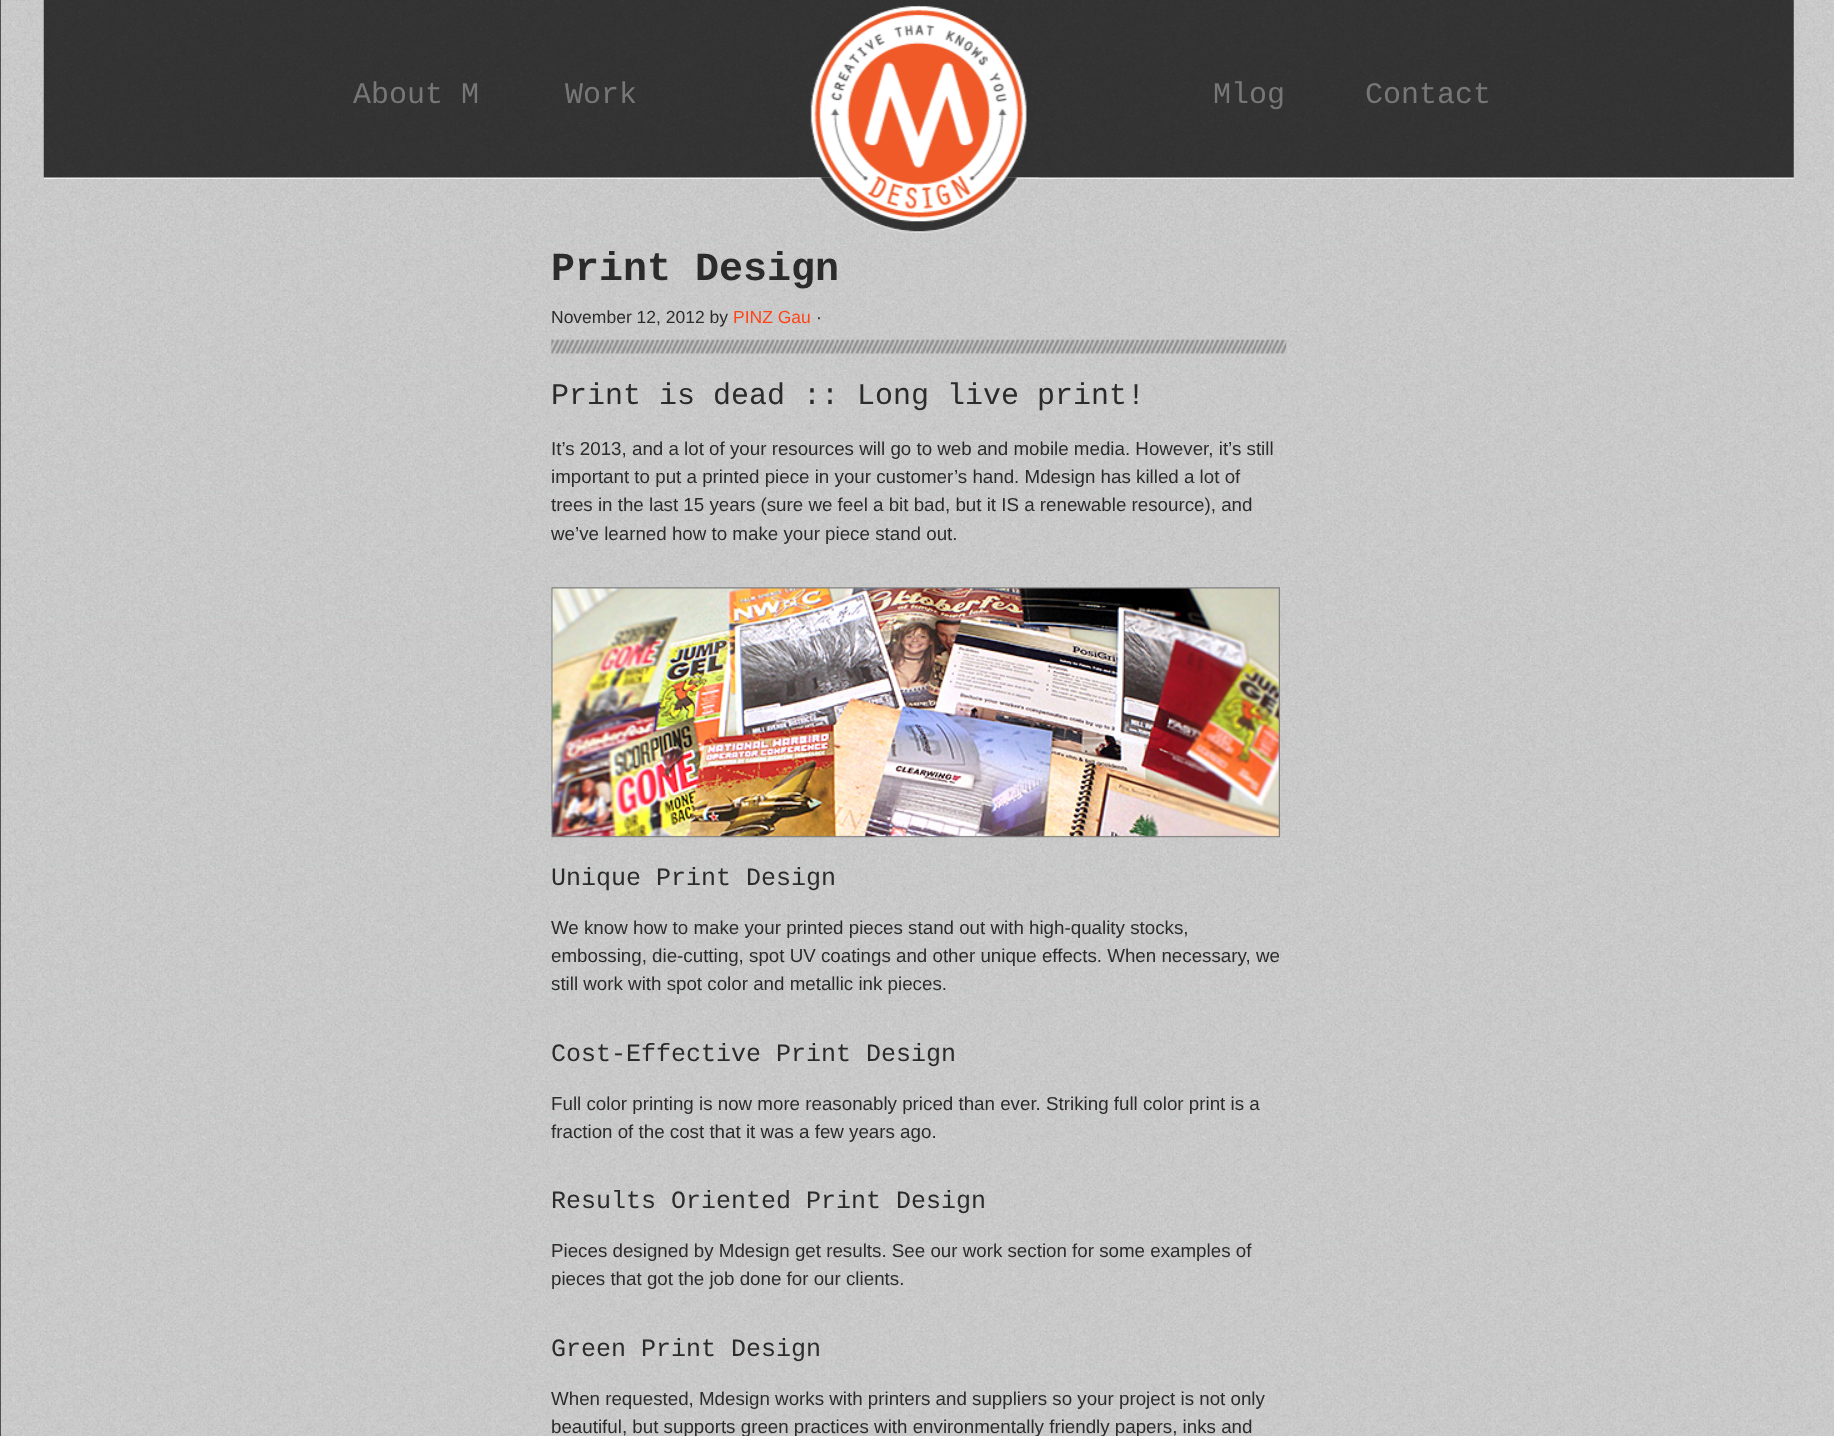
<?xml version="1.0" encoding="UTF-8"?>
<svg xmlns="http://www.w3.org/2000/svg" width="1834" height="1436">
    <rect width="100%" height="100%" fill="#FFFFFF"/>
    <image x="0" y="0" width="1834" height="1436" href="img_01.png"/>
    <path d="M 0 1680 V -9 H 1 V 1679 Z" fill="#000000" fill-opacity="0.6"/>
    <image x="43" y="0" width="1751" height="179" href="img_02.png"/>
    <image x="798" y="5" width="241" height="228" href="img_03.png"/>
    <text x="353" y="103" font-family="Liberation Mono" font-size="30" fill="#777777">About M</text>
    <text x="565" y="103" font-family="Liberation Mono" font-size="30" fill="#777777">Work</text>
    <text x="1213" y="103" font-family="Liberation Mono" font-size="30" fill="#777777">Mlog</text>
    <text x="1365" y="103" font-family="Liberation Mono" font-size="30" fill="#777777">Contact</text>
    <text x="551" y="280" font-family="Liberation Mono" font-size="40" font-weight="700" fill="#2B2B2B">Print Design</text>
    <image x="551" y="339" width="736" height="15" href="img_04.png"/>
    <text x="551" y="323" font-family="Liberation Sans" font-size="17.5" fill="#2B2B2B">November 12, 2012 by</text>
    <text x="733" y="323" font-family="Liberation Sans" font-size="17.5" fill="#FF4417">PINZ Gau</text>
    <text x="816" y="323" font-family="Liberation Sans" font-size="17.5" fill="#2B2B2B">·</text>
    <text x="551" y="404" font-family="Liberation Mono" font-size="30" fill="#2B2B2B">Print is dead :: Long live print!</text>
    <text font-family="Liberation Sans" font-size="18.75" fill="#2B2B2B">
        <tspan x="551" y="455">It’s 2013, and a lot of your resources will go to web and mobile media. However, it’s still</tspan>
        <tspan x="551" y="483">important to put a printed piece in your customer’s hand. Mdesign has killed a lot of</tspan>
        <tspan x="551" y="511">trees in the last 15 years (sure we feel a bit bad, but it IS a renewable resource), and</tspan>
        <tspan x="551" y="540">we’ve learned how to make your piece stand out.</tspan>
    </text>
    <image x="551" y="587" width="729" height="251" href="img_05.png"/>
    <text x="551" y="885" font-family="Liberation Mono" font-size="25" fill="#2B2B2B">Unique Print Design</text>
    <text font-family="Liberation Sans" font-size="18.75" fill="#2B2B2B">
        <tspan x="551" y="934">We know how to make your printed pieces stand out with high-quality stocks,</tspan>
        <tspan x="551" y="962">embossing, die-cutting, spot UV coatings and other unique effects. When necessary, we</tspan>
        <tspan x="551" y="990">still work with spot color and metallic ink pieces.</tspan>
    </text>
    <text x="551" y="1061" font-family="Liberation Mono" font-size="25" fill="#2B2B2B">Cost-Effective Print Design</text>
    <text font-family="Liberation Sans" font-size="18.75" fill="#2B2B2B">
        <tspan x="551" y="1110">Full color printing is now more reasonably priced than ever. Striking full color print is a</tspan>
        <tspan x="551" y="1138">fraction of the cost that it was a few years ago.</tspan>
    </text>
    <text x="551" y="1208" font-family="Liberation Mono" font-size="25" fill="#2B2B2B">Results Oriented Print Design</text>
    <text font-family="Liberation Sans" font-size="18.75" fill="#2B2B2B">
        <tspan x="551" y="1257">Pieces designed by Mdesign get results. See our work section for some examples of</tspan>
        <tspan x="551" y="1285">pieces that got the job done for our clients.</tspan>
    </text>
    <text x="551" y="1356" font-family="Liberation Mono" font-size="25" fill="#2B2B2B">Green Print Design</text>
    <text font-family="Liberation Sans" font-size="18.75" fill="#2B2B2B">
        <tspan x="551" y="1405">When requested, Mdesign works with printers and suppliers so your project is not only</tspan>
        <tspan x="551" y="1433">beautiful, but supports green practices with environmentally friendly papers, inks and</tspan>
    </text>
</svg>
